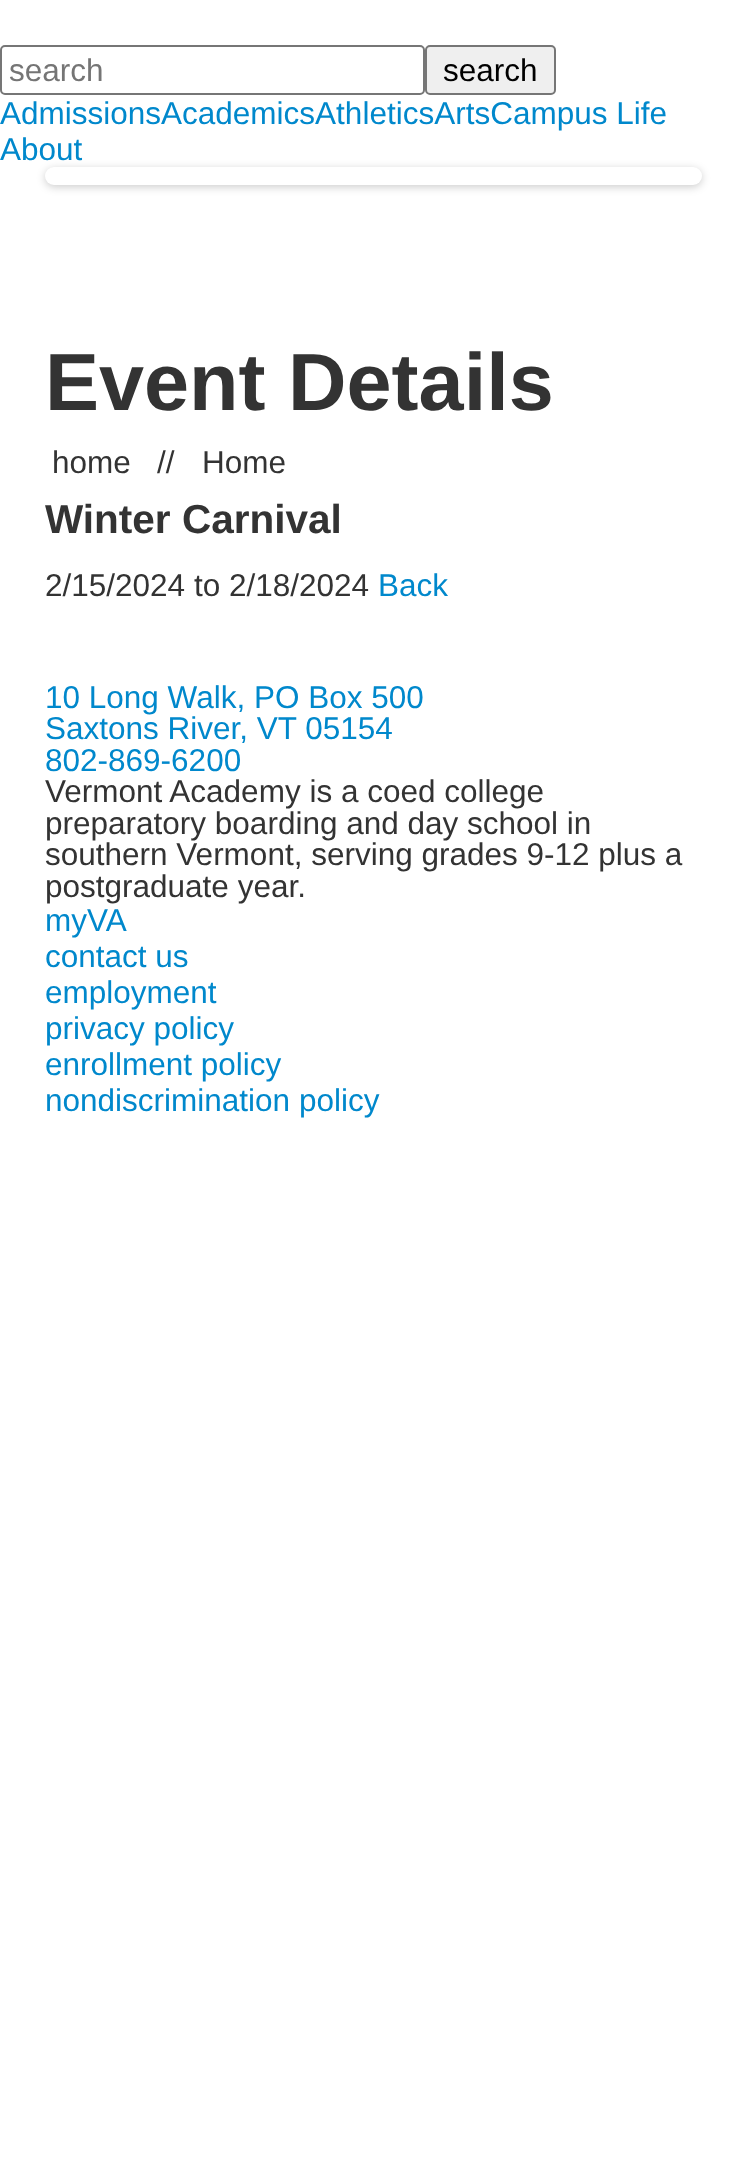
<?xml version="1.0" encoding="UTF-8"?>
<svg xmlns="http://www.w3.org/2000/svg" width="747" height="2166">
    <defs>
        <filter id="blur1" x="-50%" y="-200%" width="200%" height="500%"><feGaussianBlur stdDeviation="4.5"/></filter>
    </defs>
    <rect width="100%" height="100%" fill="#FFFFFF"/>
    <rect x="1" y="46" width="423" height="48" rx="4" fill="none" stroke="#767676" stroke-width="2"/>
    <text x="9" y="81" font-family="Liberation Sans" font-size="31.5" fill="#757575">search</text>
    <rect x="426" y="46" width="129" height="48" rx="4" fill="#EFEFEF" stroke="#767676" stroke-width="2"/>
    <text x="443" y="81" font-family="Liberation Sans" font-size="31.5" fill="#000000">search</text>
    <text x="0" y="124" font-family="Liberation Sans" font-size="31.5" fill="#0088CC">AdmissionsAcademicsAthleticsArtsCampus Life</text>
    <rect x="45" y="169" width="657" height="18" rx="9" fill="#000000" fill-opacity="0.2" filter="url(#blur1)"/>
    <text x="0" y="160" font-family="Liberation Sans" font-size="31.5" fill="#0088CC">About</text>
    <rect x="45" y="167" width="657" height="18" rx="9" fill="#FFFFFF"/>
    <text x="45" y="410" font-family="Liberation Sans" font-size="81" font-weight="700" fill="#333333">Event Details</text>
    <text x="52" y="473" font-family="Liberation Sans" font-size="31.5" fill="#333333">home</text>
    <text x="157" y="473" font-family="Liberation Sans" font-size="31.5" fill="#333333">//</text>
    <text x="202" y="473" font-family="Liberation Sans" font-size="31.5" fill="#333333">Home</text>
    <text x="45" y="533" font-family="Liberation Sans" font-size="40.5" font-weight="700" fill="#333333">Winter Carnival</text>
    <text x="45" y="596" font-family="Liberation Sans" font-size="31.5" fill="#333333">2/15/2024 to 2/18/2024</text>
    <text x="378" y="596" font-family="Liberation Sans" font-size="31.5" fill="#0088CC">Back</text>
    <text font-family="Liberation Sans" font-size="31.5" fill="#0088CC">
        <tspan x="45" y="708">10 Long Walk, PO Box 500</tspan>
        <tspan x="45" y="739">Saxtons River, VT 05154</tspan>
        <tspan x="45" y="771">802-869-6200</tspan>
    </text>
    <text font-family="Liberation Sans" font-size="31.5" fill="#333333">
        <tspan x="45" y="802">Vermont Academy is a coed college</tspan>
        <tspan x="45" y="834">preparatory boarding and day school in</tspan>
        <tspan x="45" y="865">southern Vermont, serving grades 9-12 plus a</tspan>
        <tspan x="45" y="897">postgraduate year.</tspan>
    </text>
    <text font-family="Liberation Sans" font-size="31.5" fill="#0088CC">
        <tspan x="45" y="931">myVA</tspan>
        <tspan x="45" y="967">contact us</tspan>
        <tspan x="45" y="1003">employment</tspan>
        <tspan x="45" y="1039">privacy policy</tspan>
        <tspan x="45" y="1075">enrollment policy</tspan>
        <tspan x="45" y="1111">nondiscrimination policy</tspan>
    </text>
</svg>
